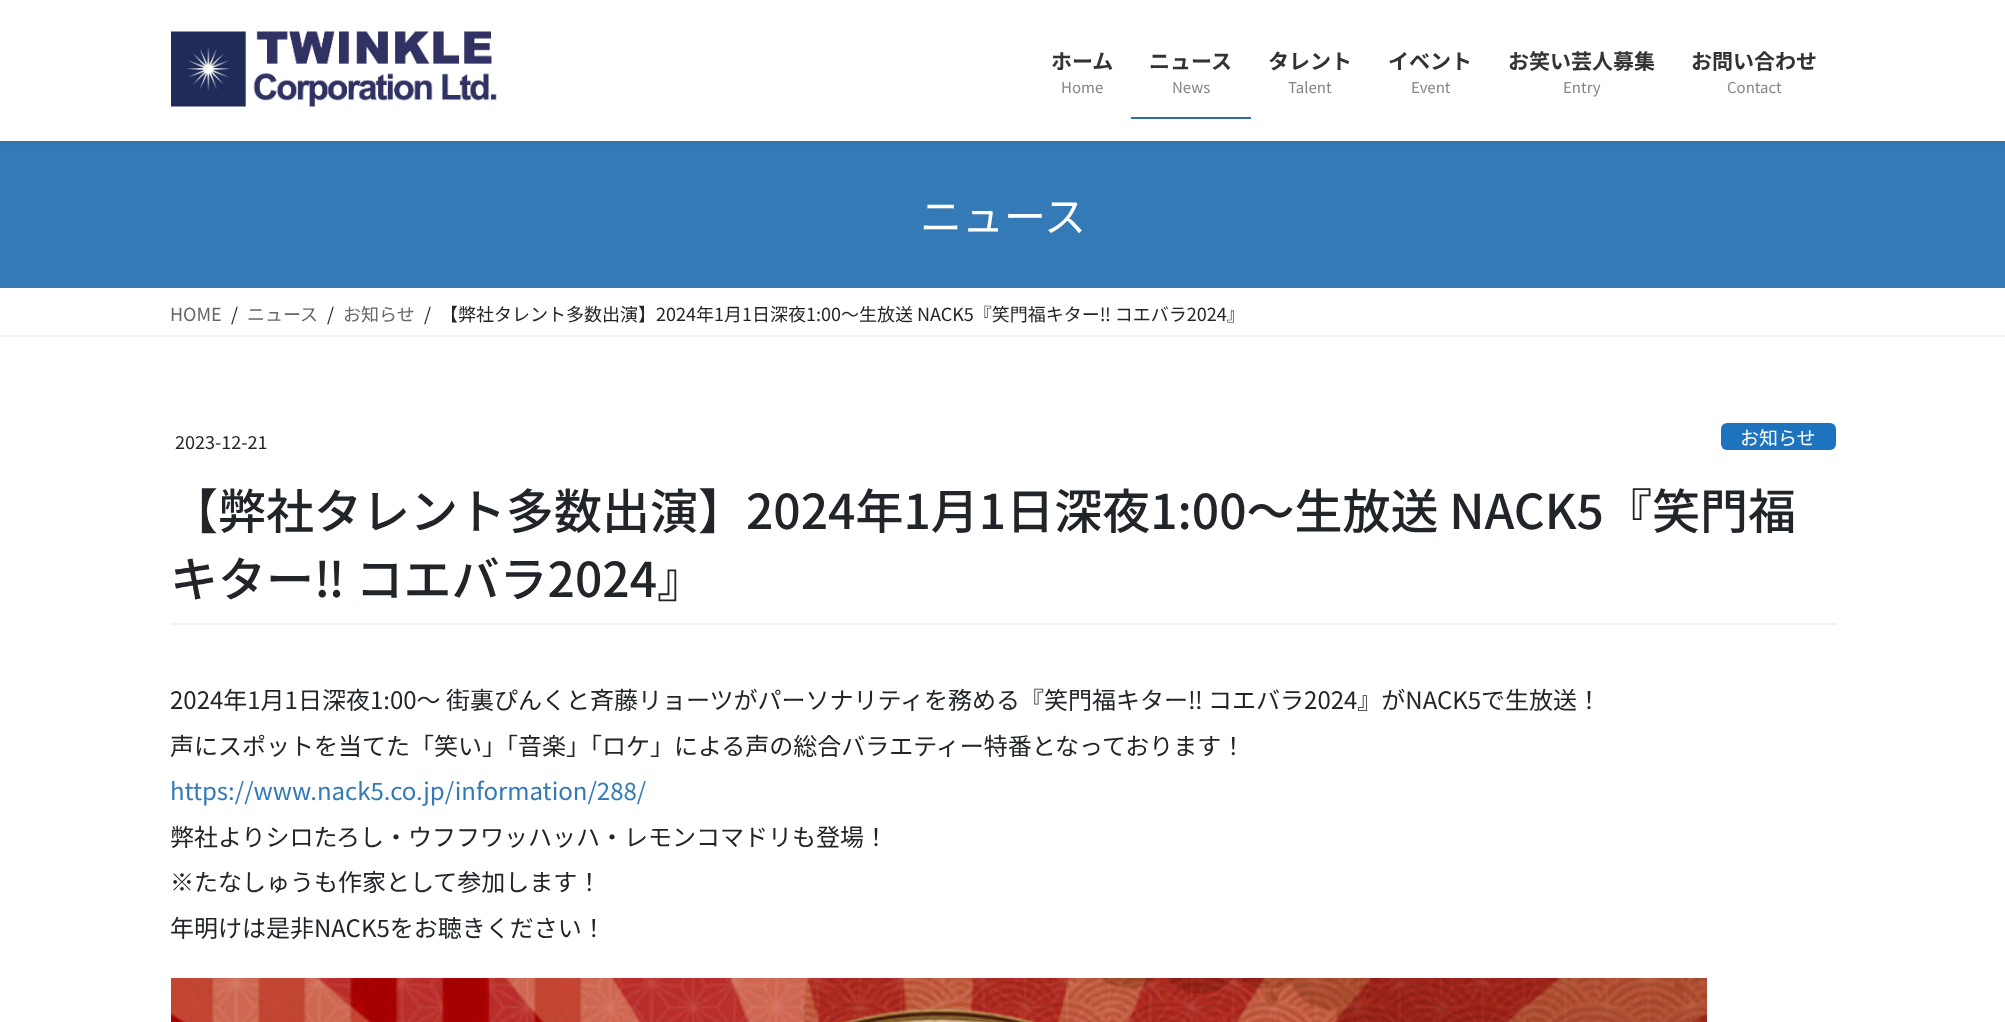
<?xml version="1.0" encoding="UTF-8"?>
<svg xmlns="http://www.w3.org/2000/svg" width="2005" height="1022">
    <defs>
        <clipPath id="clip1"><rect x="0" y="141" width="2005" height="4"/></clipPath>
        <filter id="blur1" x="-50%" y="-200%" width="200%" height="500%"><feGaussianBlur stdDeviation="2"/></filter>
    </defs>
    <rect width="100%" height="100%" fill="#FFFFFF"/>
    <rect x="0" y="141" width="2005" height="147" fill="#337AB7"/>
    <g clip-path="url(#clip1)">
        <rect x="0" y="2" width="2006" height="141" fill="#000000" fill-opacity="0.1" filter="url(#blur1)"/>
    </g>
    <image x="171" y="31" width="326" height="76" href="img_01.png"/>
    <text x="1051" y="69" font-family="Noto Sans JP" font-size="21" font-weight="700" fill="#333333">ホーム</text>
    <text x="1061" y="93" font-family="Noto Sans JP" font-size="15" fill="#858585">Home</text>
    <text x="1149" y="69" font-family="Noto Sans JP" font-size="21" font-weight="700" fill="#333333">ニュース</text>
    <text x="1172" y="93" font-family="Noto Sans JP" font-size="15" fill="#858585">News</text>
    <rect x="1131" y="117" width="120" height="2" fill="#2E6DA4"/>
    <text x="1268" y="69" font-family="Noto Sans JP" font-size="21" font-weight="700" fill="#333333">タレント</text>
    <text x="1288" y="93" font-family="Noto Sans JP" font-size="15" fill="#858585">Talent</text>
    <text x="1388" y="69" font-family="Noto Sans JP" font-size="21" font-weight="700" fill="#333333">イベント</text>
    <text x="1411" y="93" font-family="Noto Sans JP" font-size="15" fill="#858585">Event</text>
    <text x="1508" y="69" font-family="Noto Sans JP" font-size="21" font-weight="700" fill="#333333">お笑い芸人募集</text>
    <text x="1563" y="93" font-family="Noto Sans JP" font-size="15" fill="#858585">Entry</text>
    <text x="1691" y="69" font-family="Noto Sans JP" font-size="21" font-weight="700" fill="#333333">お問い合わせ</text>
    <text x="1727" y="93" font-family="Noto Sans JP" font-size="15" fill="#858585">Contact</text>
    <text x="920" y="232" font-family="Noto Sans JP" font-size="42" fill="#FFFFFF">ニュース</text>
    <rect x="0" y="335" width="2005" height="2" fill="#F2F2F2"/>
    <text x="170" y="321" font-family="Noto Sans JP" font-size="18" fill="#666666">HOME</text>
    <text x="231" y="321" font-family="Noto Sans JP" font-size="18" fill="#212529">/</text>
    <text x="247" y="321" font-family="Noto Sans JP" font-size="18" fill="#666666">ニュース</text>
    <text x="327" y="321" font-family="Noto Sans JP" font-size="18" fill="#212529">/</text>
    <text x="343" y="321" font-family="Noto Sans JP" font-size="18" fill="#666666">お知らせ</text>
    <text x="424" y="321" font-family="Noto Sans JP" font-size="18" fill="#212529">/</text>
    <text x="440" y="321" font-family="Noto Sans JP" font-size="18" fill="#212529">【弊社タレント多数出演】2024年1月1日深夜1:00〜生放送 NACK5『笑門福キター‼︎ コエバラ2024』</text>
    <rect x="171" y="623" width="1665" height="2" fill="#F2F2F2"/>
    <text x="175" y="449" font-family="Noto Sans JP" font-size="18" fill="#212529">2023-12-21</text>
    <rect x="1721" y="423" width="115" height="27" rx="6" fill="#1E73BE"/>
    <text x="1740" y="445" font-family="Noto Sans JP" font-size="19" fill="#FFFFFF">お知らせ</text>
    <text font-family="Noto Sans JP" font-size="48" font-weight="500" fill="#212529">
        <tspan x="170" y="529">【弊社タレント多数出演】2024年1月1日深夜1:00〜生放送 NACK5『笑門福</tspan>
        <tspan x="170" y="597">キター‼︎ コエバラ2024』</tspan>
    </text>
    <text font-family="Noto Sans JP" font-size="24" fill="#212529">
        <tspan x="170" y="709">2024年1月1日深夜1:00〜 街裏ぴんくと斉藤リョーツがパーソナリティを務める『笑門福キター‼︎ コエバラ2024』がNACK5で生放送！</tspan>
        <tspan x="170" y="755">声にスポットを当てた「笑い」「音楽」「ロケ」による声の総合バラエティー特番となっております！</tspan>
    </text>
    <text x="170" y="800" font-family="Noto Sans JP" font-size="24" fill="#337AB7">https://www.nack5.co.jp/information/288/</text>
    <text font-family="Noto Sans JP" font-size="24" fill="#212529">
        <tspan x="170" y="846">弊社よりシロたろし・ウフフワッハッハ・レモンコマドリも登場！</tspan>
        <tspan x="170" y="891">※たなしゅうも作家として参加します！</tspan>
        <tspan x="170" y="937">年明けは是非NACK5をお聴きください！</tspan>
    </text>
    <image x="171" y="978" width="1536" height="44" href="img_02.png"/>
</svg>
